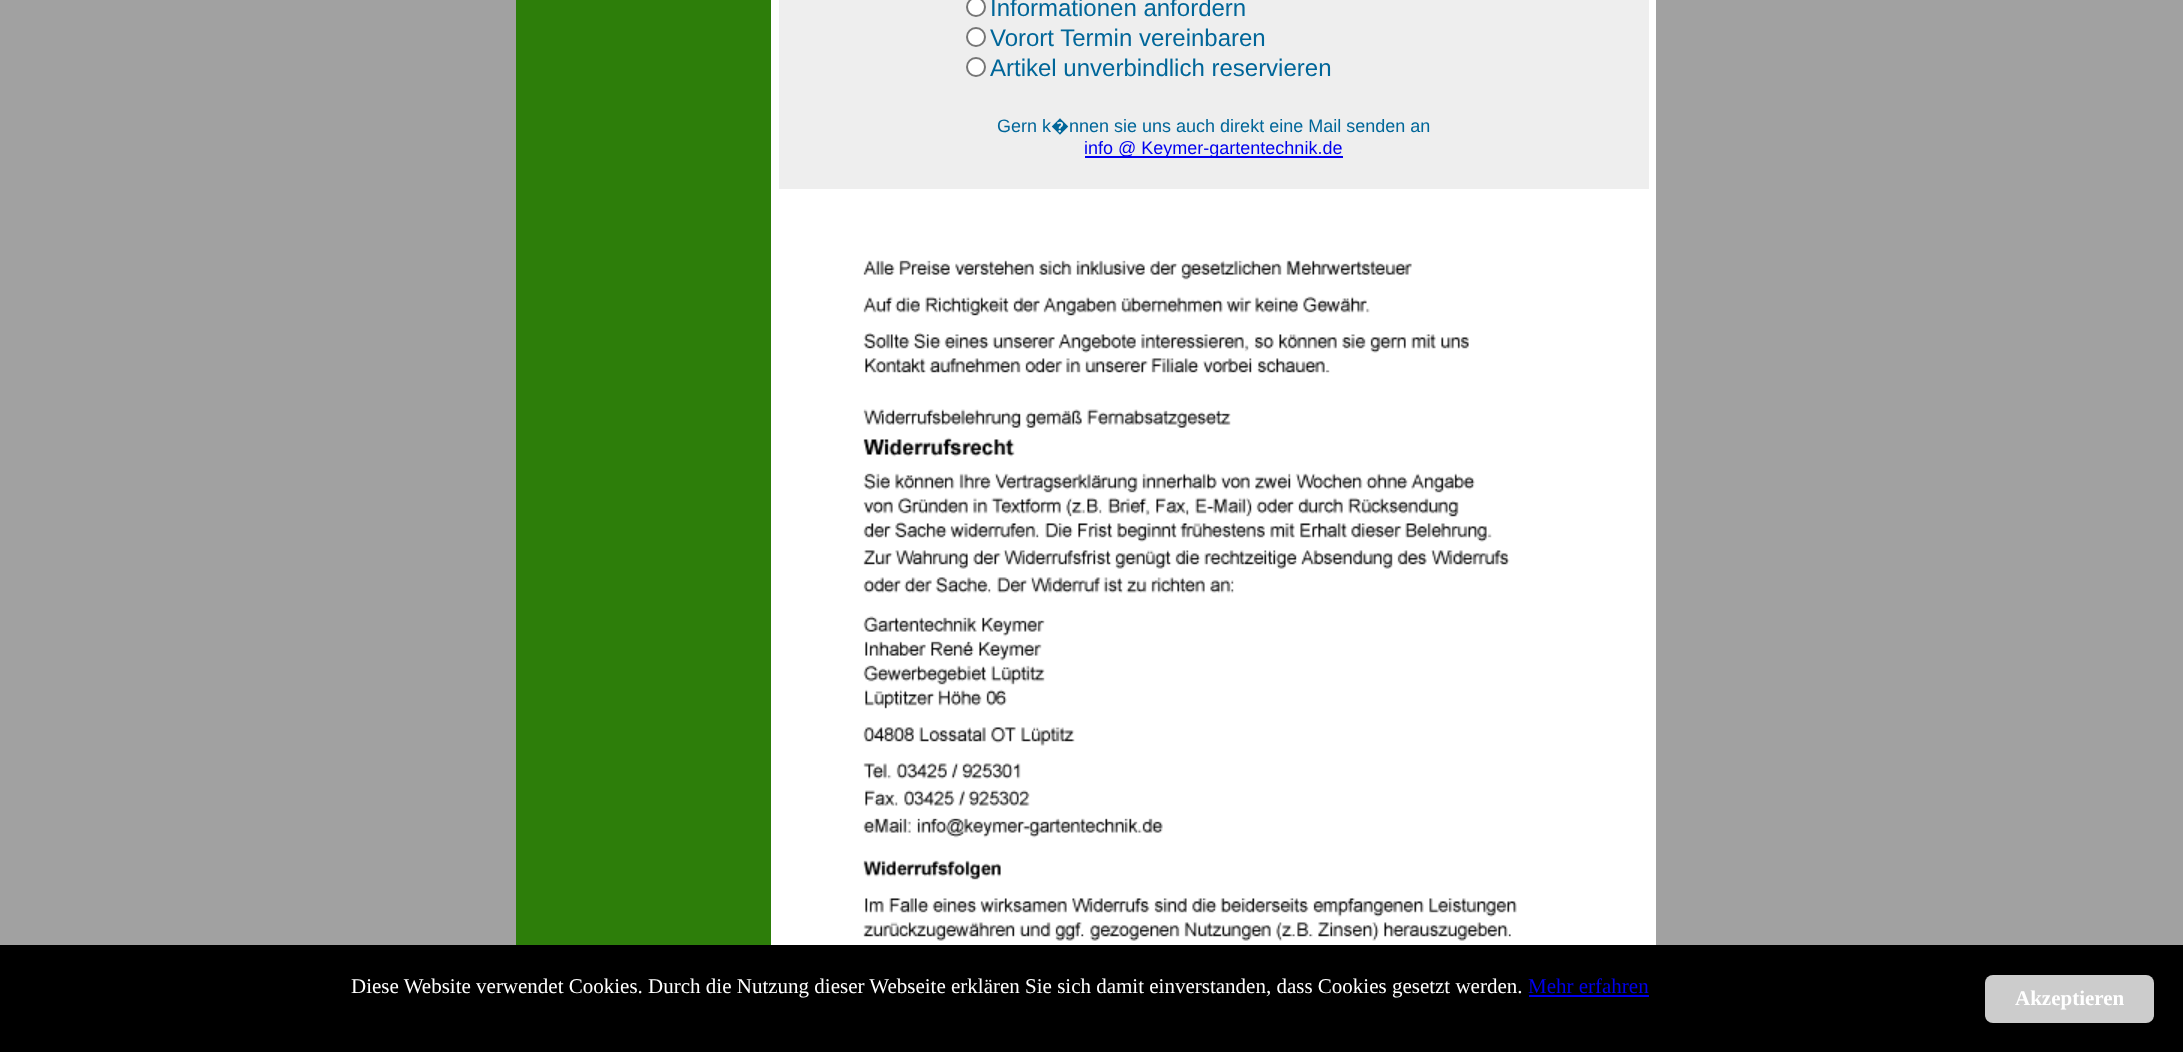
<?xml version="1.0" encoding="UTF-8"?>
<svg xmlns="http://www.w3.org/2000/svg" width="2183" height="1052">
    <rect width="100%" height="100%" fill="#A1A1A1"/>
    <rect x="516" y="0" width="255" height="945" fill="#2D7E0A"/>
    <rect x="771" y="0" width="885" height="945" fill="#FFFFFF"/>
    <rect x="779" y="0" width="870" height="189" fill="#EEEEEE"/>
    <circle cx="976" cy="7" r="9" fill="#FFFFFF" stroke="#767676" stroke-width="2"/>
    <text x="990" y="16" font-family="Liberation Sans" font-size="24" fill="#006699">Informationen anfordern</text>
    <circle cx="976" cy="37" r="9" fill="#FFFFFF" stroke="#767676" stroke-width="2"/>
    <text x="990" y="46" font-family="Liberation Sans" font-size="24" fill="#006699">Vorort Termin vereinbaren</text>
    <circle cx="976" cy="67" r="9" fill="#FFFFFF" stroke="#767676" stroke-width="2"/>
    <text x="990" y="76" font-family="Liberation Sans" font-size="24" fill="#006699">Artikel unverbindlich reservieren</text>
    <text x="997" y="132" font-family="Liberation Sans" font-size="18" fill="#006699">Gern k</text>
    <text x="1051" y="132" font-family="Noto Sans" font-size="18" fill="#006699">�</text>
    <text x="1069" y="132" font-family="Liberation Sans" font-size="18" fill="#006699">nnen sie uns auch direkt eine Mail senden an</text>
    <rect x="1085" y="156" width="258" height="2" fill="#0000EE"/>
    <text x="1084" y="154" font-family="Liberation Sans" font-size="18" fill="#0000EE">info @ Keymer-gartentechnik.de</text>
    <image x="863" y="260" width="705" height="685" href="img_01.png"/>
    <rect x="0" y="945" width="2183" height="107" fill="#000000"/>
    <text x="351" y="993" font-family="Liberation Serif" font-size="21" fill="#FFFFFF">Diese Website verwendet Cookies. Durch die Nutzung dieser Webseite erklären Sie sich damit einverstanden, dass Cookies gesetzt werden.</text>
    <text x="1528" y="993" font-family="Liberation Serif" font-size="21" fill="#0000EE">Mehr erfahren</text>
    <rect x="1529" y="995" width="120" height="2" fill="#0000EE"/>
    <rect x="1985" y="975" width="169" height="48" rx="8" fill="#CCCCCC"/>
    <text x="2015" y="1005" font-family="Liberation Serif" font-size="21" font-weight="700" fill="#FFFFFF">Akzeptieren</text>
</svg>
